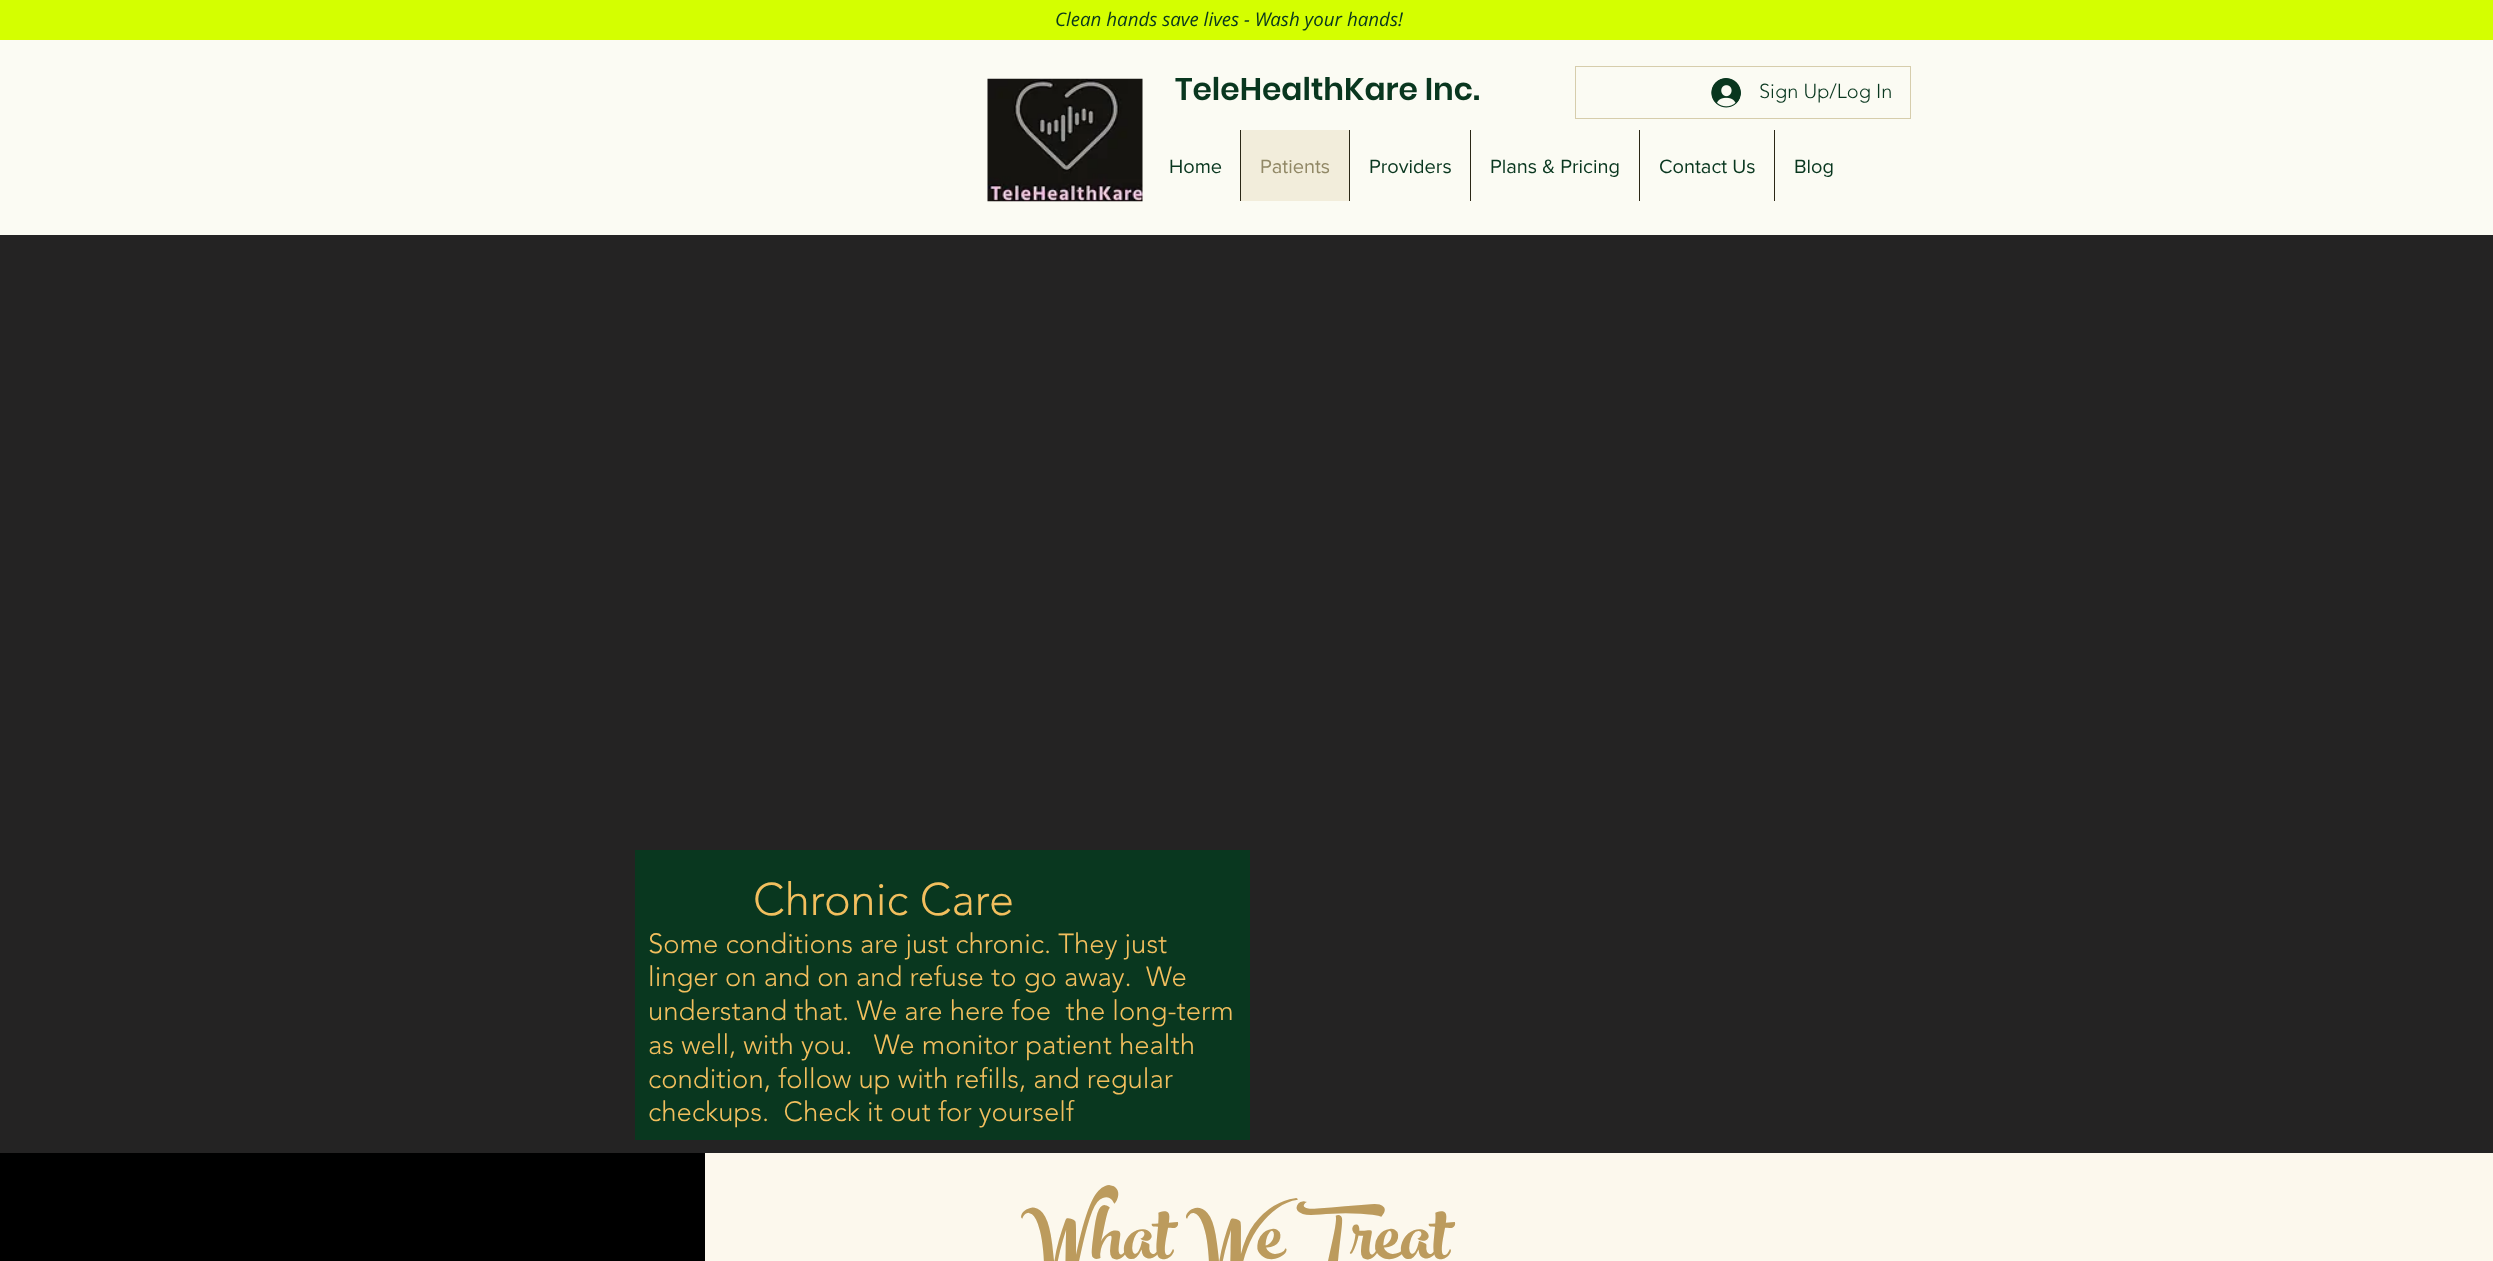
<?xml version="1.0" encoding="UTF-8"?>
<svg xmlns="http://www.w3.org/2000/svg" width="2493" height="1261">
    <rect width="100%" height="100%" fill="#242323"/>
    <rect x="0" y="0" width="2493" height="40" fill="#D4FF00"/>
    <text x="1055" y="26" font-family="Open Sans" font-size="18.75" font-style="italic" fill="#09371F">Clean hands save lives - Wash your hands!</text>
    <rect x="0" y="40" width="2493" height="195" fill="#FBFBF3"/>
    <image x="987" y="78" width="156" height="124" href="img_01.png"/>
    <text x="1175" y="100" font-family="Poppins" font-size="31.25" font-weight="600" fill="#09371F">TeleHealthKare Inc.</text>
    <rect x="1575.5" y="66.5" width="335" height="52" fill="none" stroke="#D6CDAC"/>
    <image x="1711" y="78" width="30" height="30" href="img_02.png"/>
    <text x="1759" y="98" font-family="'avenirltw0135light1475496'" font-size="20" font-weight="300" fill="#09371F">Sign Up/Log In</text>
    <text x="1169" y="173" font-family="'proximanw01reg'" font-size="20" fill="#09371F">Home</text>
    <rect x="1241" y="130" width="108" height="71" fill="#F2EDDB"/>
    <rect x="1240" y="130" width="1" height="71" fill="#2B2716"/>
    <text x="1260" y="173" font-family="'proximanw01reg'" font-size="20" fill="#918866">Patients</text>
    <rect x="1349" y="130" width="1" height="71" fill="#2B2716"/>
    <text x="1369" y="173" font-family="'proximanw01reg'" font-size="20" fill="#09371F">Providers</text>
    <rect x="1470" y="130" width="1" height="71" fill="#2B2716"/>
    <text x="1490" y="173" font-family="'proximanw01reg'" font-size="20" fill="#09371F">Plans &amp; Pricing</text>
    <rect x="1639" y="130" width="1" height="71" fill="#2B2716"/>
    <text x="1659" y="173" font-family="'proximanw01reg'" font-size="20" fill="#09371F">Contact Us</text>
    <rect x="1774" y="130" width="1" height="71" fill="#2B2716"/>
    <text x="1794" y="173" font-family="'proximanw01reg'" font-size="20" fill="#09371F">Blog</text>
    <rect x="635" y="850" width="615" height="290" fill="#09371F"/>
    <text x="753" y="915" font-family="'avenirltw0135light1475496'" font-size="45" font-weight="300" fill="#F2BF5E">Chronic Care</text>
    <text font-family="'avenirltw0135light1475496'" font-size="27.5" font-weight="300" fill="#F2BF5E" xml:space="preserve"><tspan x="648" y="953">Some conditions are just chronic. They just</tspan><tspan x="648" y="986">linger on and on and refuse to go away.  We</tspan><tspan x="648" y="1020">understand that. We are here foe  the long-term</tspan><tspan x="648" y="1054">as well, with you.   We monitor patient health</tspan><tspan x="648" y="1088">condition, follow up with refills, and regular</tspan><tspan x="648" y="1121">checkups.  Check it out for yourself</tspan></text>
    <rect x="0" y="1153" width="705" height="108" fill="#000000"/>
    <rect x="705" y="1153" width="1788" height="108" fill="#FCF8ED"/>
    <text x="1021" y="1259" font-family="'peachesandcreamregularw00'" font-size="112.5" fill="#BC9B5D">What We Treat</text>
</svg>
